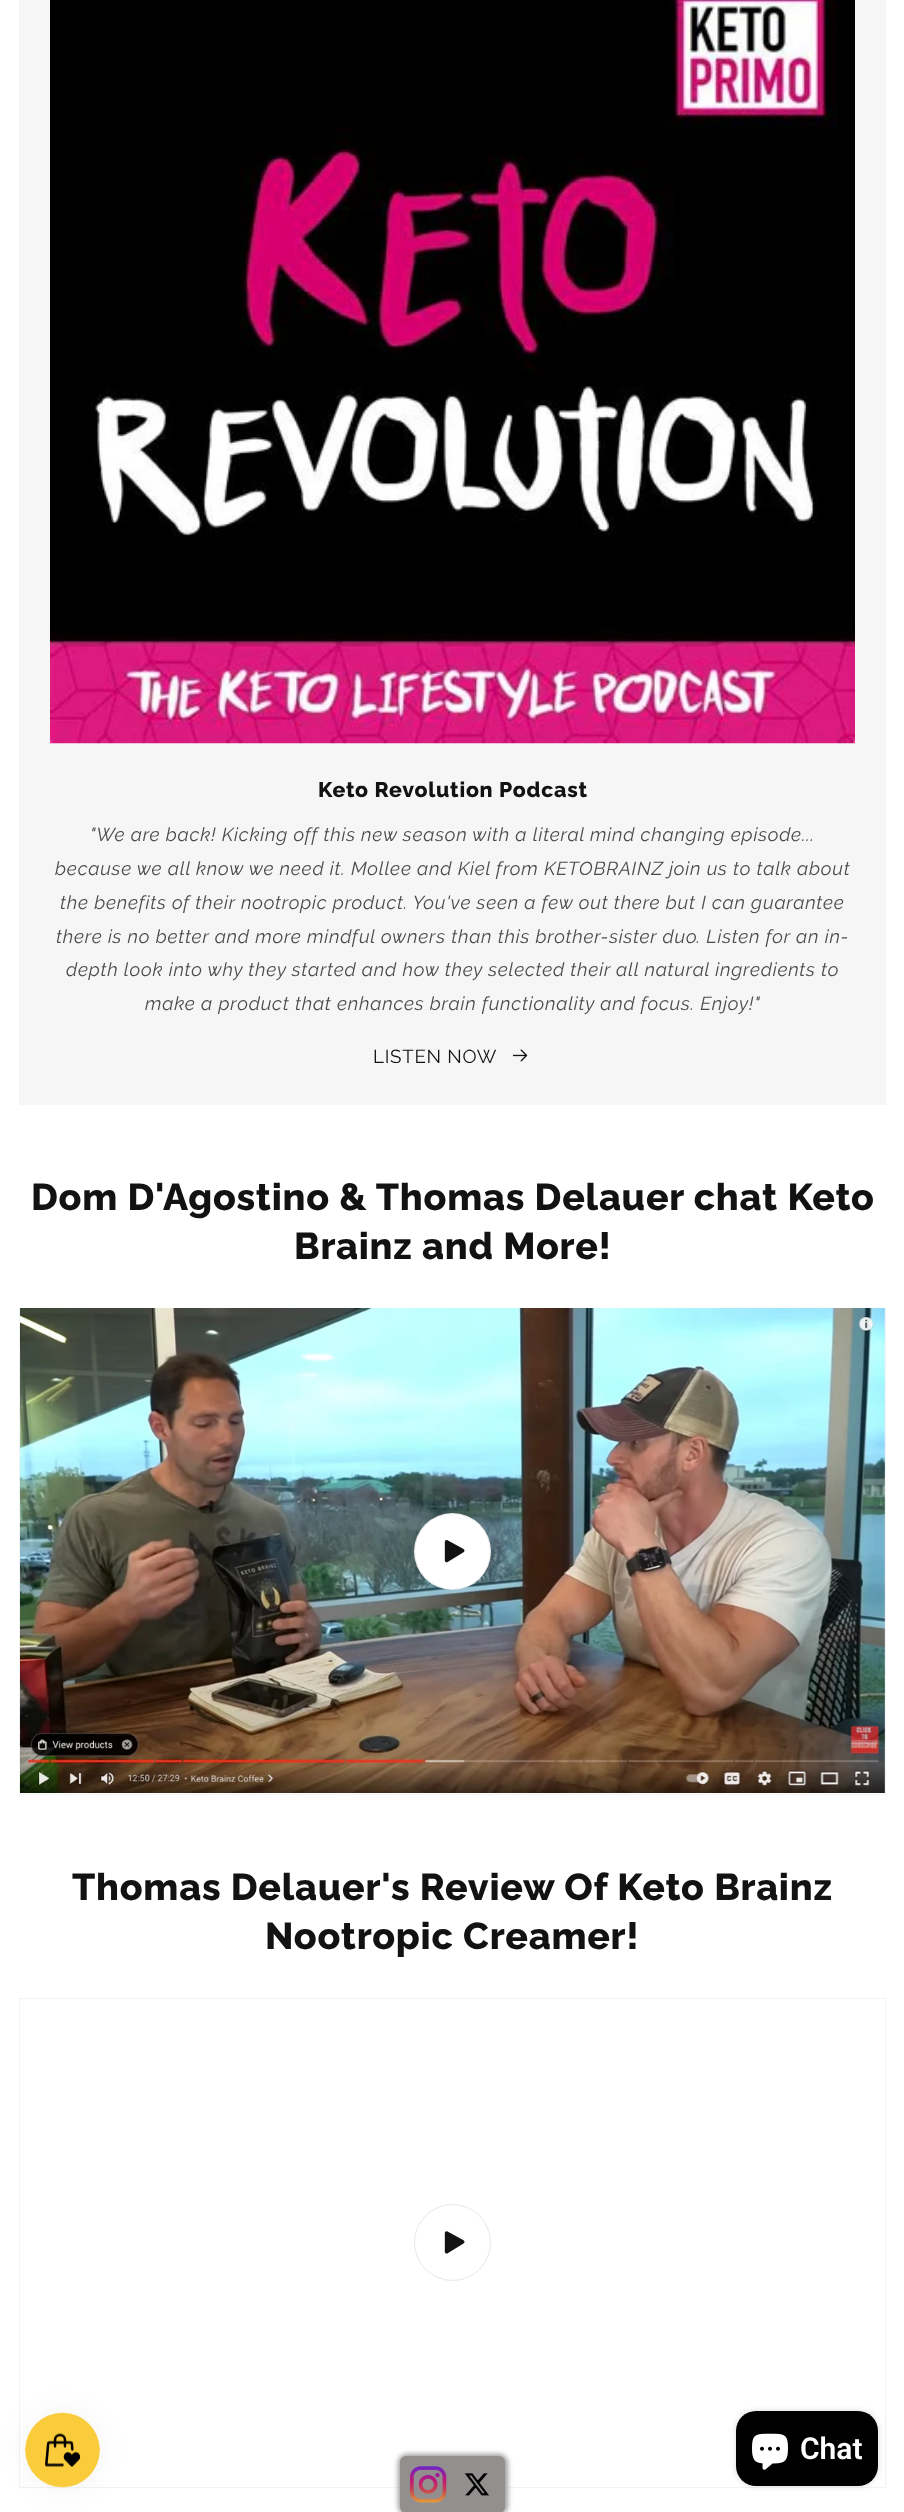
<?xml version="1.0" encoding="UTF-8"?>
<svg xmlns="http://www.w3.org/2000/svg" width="904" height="2512">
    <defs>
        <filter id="blur1" x="-50%" y="-200%" width="200%" height="500%"><feGaussianBlur stdDeviation="15.5"/></filter>
        <filter id="blur2" x="-50%" y="-200%" width="200%" height="500%"><feGaussianBlur stdDeviation="2.5"/></filter>
        <filter id="blur3" x="-50%" y="-200%" width="200%" height="500%"><feGaussianBlur stdDeviation="3"/></filter>
    </defs>
    <rect width="100%" height="100%" fill="#FFFFFF"/>
    <rect x="19" y="0" width="867" height="1105" fill="#F6F6F6"/>
    <image x="50" y="0" width="805" height="744" href="img_01.png"/>
    <text x="318" y="797" font-family="Raleway" font-size="21.25" font-weight="800" letter-spacing="0.75" fill="#121212">Keto Revolution Podcast</text>
    <text x="90" y="841" font-family="Raleway" font-size="18.75" font-style="italic" letter-spacing="0.75" fill="#4B4B4B">"We are back! Kicking off this new season with a literal mind changing episode...</text>
    <text x="55" y="875" font-family="Raleway" font-size="18.75" font-style="italic" letter-spacing="0.75" fill="#4B4B4B">because we all know we need it. Mollee and Kiel from KETOBRAINZ join us to talk about</text>
    <text x="60" y="909" font-family="Raleway" font-size="18.75" font-style="italic" letter-spacing="0.75" fill="#4B4B4B">the benefits of their nootropic product. You've seen a few out there but I can guarantee</text>
    <text x="56" y="943" font-family="Raleway" font-size="18.75" font-style="italic" letter-spacing="0.75" fill="#4B4B4B">there is no better and more mindful owners than this brother-sister duo. Listen for an in-</text>
    <text x="66" y="976" font-family="Raleway" font-size="18.75" font-style="italic" letter-spacing="0.75" fill="#4B4B4B">depth look into why they started and how they selected their all natural ingredients to</text>
    <text x="145" y="1010" font-family="Raleway" font-size="18.75" font-style="italic" letter-spacing="0.75" fill="#4B4B4B">make a product that enhances brain functionality and focus. Enjoy!"</text>
    <text x="373" y="1063" font-family="Raleway" font-size="18.75" letter-spacing="0.75" fill="#121212">LISTEN NOW</text>
    <image x="513" y="1049" width="15" height="13" href="img_02.png"/>
    <text x="31" y="1210" font-family="Raleway" font-size="37.5" font-weight="800" letter-spacing="0.75" fill="#121212">Dom D'Agostino &amp; Thomas Delauer chat Keto</text>
    <text x="294" y="1259" font-family="Raleway" font-size="37.5" font-weight="800" letter-spacing="0.75" fill="#121212">Brainz and More!</text>
    <rect x="19.5" y="1308.5" width="866" height="486" fill="none" stroke="#F3F3F3"/>
    <image x="20" y="1308" width="865" height="485" href="img_03.png"/>
    <circle cx="452.5" cy="1551.5" r="38.5" fill="#FFFFFF"/>
    <circle cx="452.5" cy="1551.5" r="38" fill="none" stroke="#121212" stroke-opacity="0.1"/>
    <image x="444" y="1540" width="21" height="23" href="img_04.png"/>
    <text x="72" y="1900" font-family="Raleway" font-size="37.5" font-weight="800" letter-spacing="0.75" fill="#121212">Thomas Delauer's Review Of Keto Brainz</text>
    <text x="265" y="1949" font-family="Raleway" font-size="37.5" font-weight="800" letter-spacing="0.75" fill="#121212">Nootropic Creamer!</text>
    <rect x="19.5" y="1998.5" width="866" height="489" fill="none" stroke="#F3F3F3"/>
    <circle cx="452.5" cy="2242.5" r="38" fill="none" stroke="#E7E7E7"/>
    <image x="444" y="2231" width="21" height="23" href="img_05.png"/>
    <rect x="25" y="2413" width="75" height="75" rx="37.5" fill="#000000" fill-opacity="0.05" filter="url(#blur1)"/>
    <image x="25" y="2412" width="75" height="76" href="img_06.png"/>
    <rect x="398" y="2454" width="110" height="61" rx="9" fill="#9E9E9E" filter="url(#blur2)"/>
    <rect x="400" y="2456" width="105" height="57" rx="6" fill="#948F8F"/>
    <image x="410" y="2466" width="37" height="37" href="img_07.png"/>
    <image x="464" y="2473" width="25" height="23" href="img_08.png"/>
    <rect x="736" y="2411" width="142" height="75" rx="20" fill="#000000" fill-opacity="0.15" filter="url(#blur3)"/>
    <rect x="736" y="2411" width="142" height="75" rx="20" fill="#000000"/>
    <image x="752" y="2433" width="36" height="37" href="img_09.png"/>
    <text x="800" y="2459" font-family="Roboto" font-size="30" font-weight="600" fill="#FFFFFF">Chat</text>
</svg>
